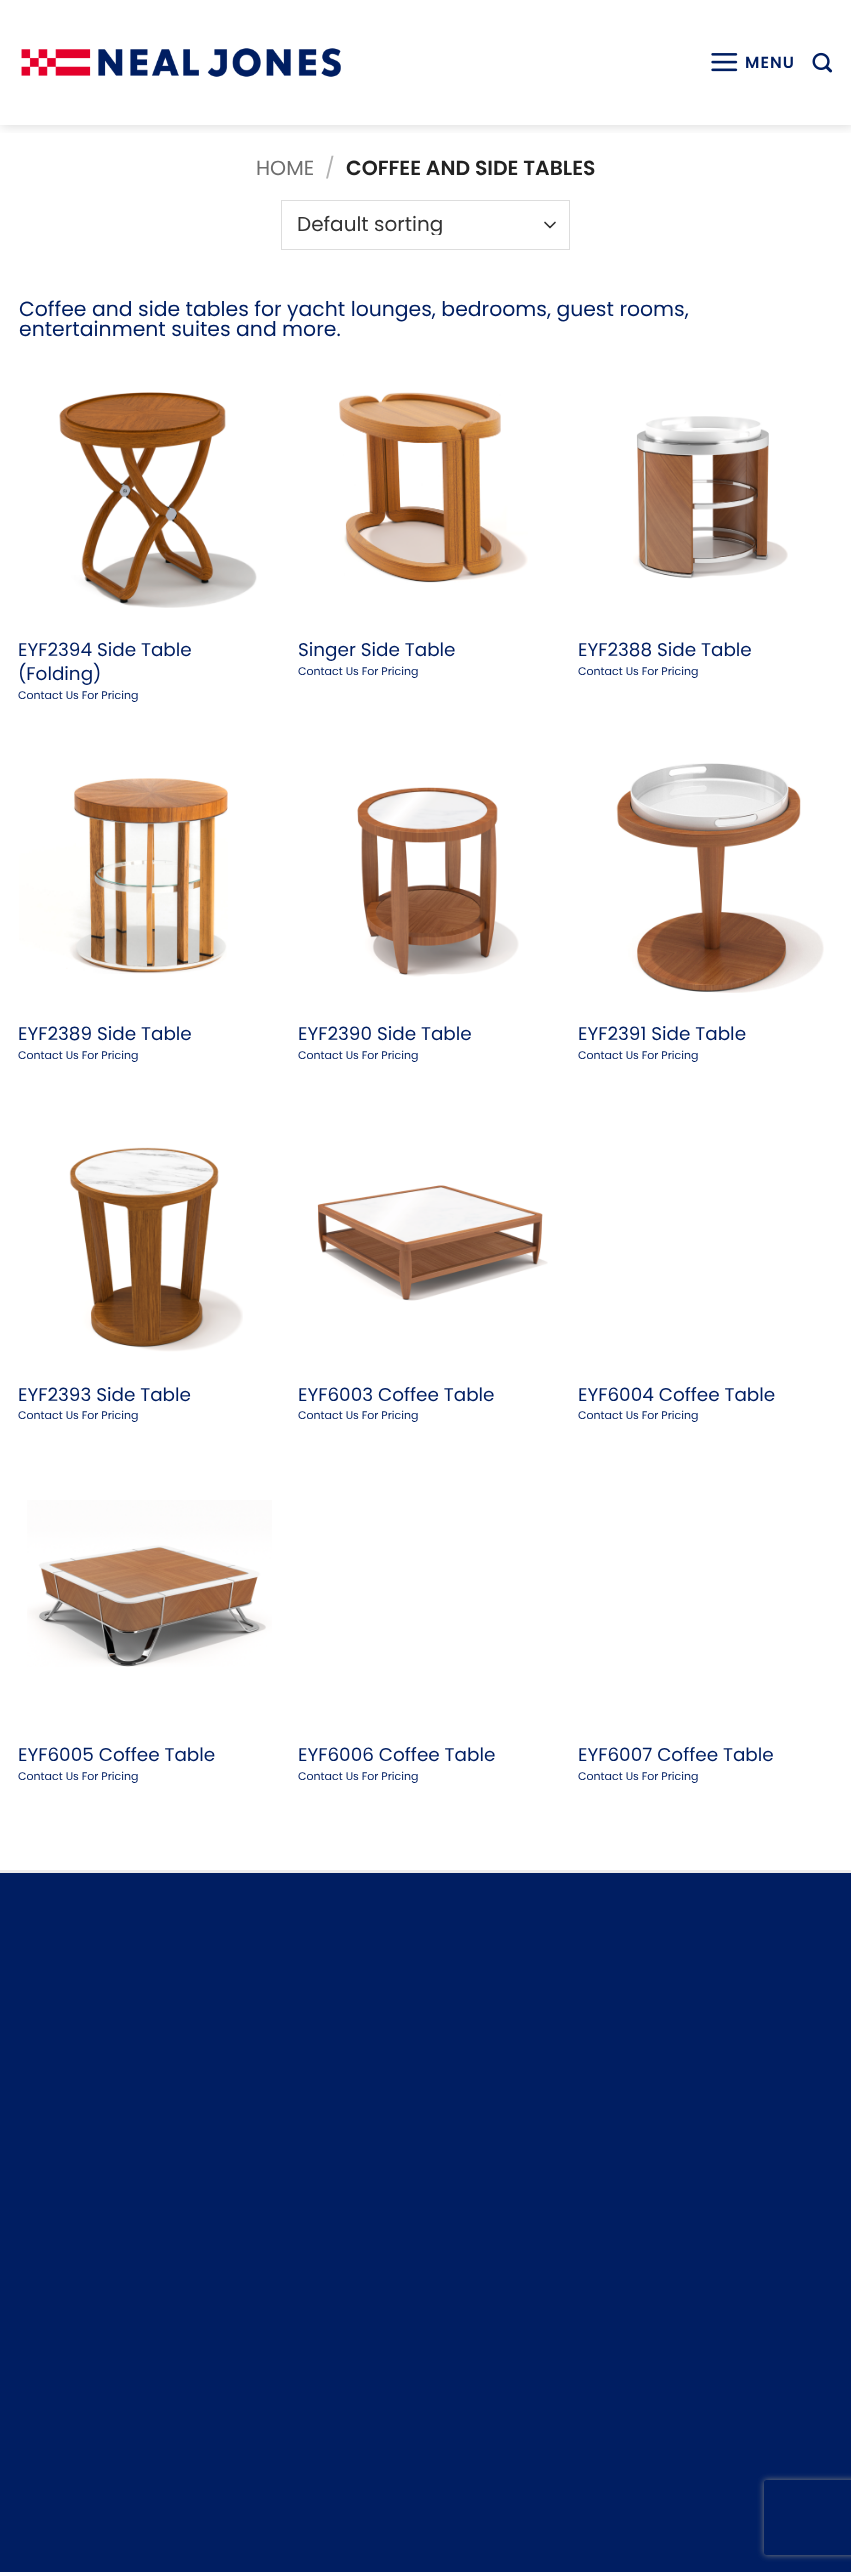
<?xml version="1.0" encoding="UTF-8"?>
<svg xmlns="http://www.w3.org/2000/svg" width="851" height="2572">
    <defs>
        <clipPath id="clip1"><rect x="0" y="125" width="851" height="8"/></clipPath>
        <filter id="blur1" x="-50%" y="-200%" width="200%" height="500%"><feGaussianBlur stdDeviation="6"/></filter>
        <clipPath id="clip2"><rect x="298" y="214" width="243" height="21"/></clipPath>
        <clipPath id="clip3"><path d="M 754 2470 H 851 V 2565 H 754 Z M 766.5 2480 H 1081.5 C 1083 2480 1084 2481 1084 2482.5 V 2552.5 C 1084 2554 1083 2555 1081.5 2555 H 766.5 C 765 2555 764 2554 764 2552.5 V 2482.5 C 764 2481 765 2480 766.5 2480 Z" clip-rule="evenodd"/></clipPath>
        <filter id="blur2" x="-50%" y="-200%" width="200%" height="500%"><feGaussianBlur stdDeviation="3"/></filter>
    </defs>
    <rect width="100%" height="100%" fill="#FFFFFF"/>
    <g clip-path="url(#clip1)">
        <rect x="1" y="1" width="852" height="125" fill="#000000" fill-opacity="0.15" filter="url(#blur1)"/>
    </g>
    <image x="21" y="48" width="320" height="29" href="img_01.png"/>
    <image x="711" y="53" width="27" height="19" href="img_02.png"/>
    <text x="745" y="68" font-family="Poppins" font-size="16" font-weight="600" letter-spacing="1" fill="#001E62">MENU</text>
    <image x="812" y="52" width="21" height="21" href="img_03.png"/>
    <text x="256" y="175" font-family="Poppins" font-size="20.4" fill="#6E6E6E">HOME</text>
    <text x="325" y="175" font-family="Poppins" font-size="20.4" fill="#B2B2B2">/</text>
    <text x="346" y="175" font-family="Poppins" font-size="20.4" font-weight="600" fill="#222222">COFFEE AND SIDE TABLES</text>
    <path d="M 545 222.5 L 550 227.5 L 555 222.5" fill="none" stroke="#333333" stroke-width="1.7" stroke-linecap="round" stroke-linejoin="round"/>
    <rect x="281.5" y="200.5" width="288" height="49" fill="none" stroke="#DDDDDD"/>
    <g clip-path="url(#clip2)">
        <text x="297" y="231" font-family="Poppins" font-size="20" fill="#333333">Default sorting</text>
    </g>
    <text font-family="Poppins" font-size="20.4" fill="#001E62">
        <tspan x="19" y="316">Coffee and side tables for yacht lounges, bedrooms, guest rooms,</tspan>
        <tspan x="19" y="336">entertainment suites and more.</tspan>
    </text>
    <image x="59" y="392" width="198" height="216" href="img_04.png"/>
    <text font-family="Poppins" font-size="18.4" fill="#001E62">
        <tspan x="18" y="656">EYF2394 Side Table</tspan>
        <tspan x="18" y="680">(Folding)</tspan>
    </text>
    <text x="18" y="699" font-family="Poppins" font-size="11" fill="#001E62">Contact Us For Pricing</text>
    <image x="339" y="392" width="189" height="191" href="img_05.png"/>
    <text x="298" y="656" font-family="Poppins" font-size="18.4" fill="#001E62">Singer Side Table</text>
    <text x="298" y="675" font-family="Poppins" font-size="11" fill="#001E62">Contact Us For Pricing</text>
    <image x="633" y="416" width="155" height="163" href="img_06.png"/>
    <text x="578" y="656" font-family="Poppins" font-size="18.4" fill="#001E62">EYF2388 Side Table</text>
    <text x="578" y="675" font-family="Poppins" font-size="11" fill="#001E62">Contact Us For Pricing</text>
    <image x="19" y="778" width="209" height="196" href="img_07.png"/>
    <text x="18" y="1040" font-family="Poppins" font-size="18.4" fill="#001E62">EYF2389 Side Table</text>
    <text x="18" y="1059" font-family="Poppins" font-size="11" fill="#001E62">Contact Us For Pricing</text>
    <image x="357" y="787" width="162" height="190" href="img_08.png"/>
    <text x="298" y="1040" font-family="Poppins" font-size="18.4" fill="#001E62">EYF2390 Side Table</text>
    <text x="298" y="1059" font-family="Poppins" font-size="11" fill="#001E62">Contact Us For Pricing</text>
    <image x="616" y="763" width="208" height="230" href="img_09.png"/>
    <text x="578" y="1040" font-family="Poppins" font-size="18.4" fill="#001E62">EYF2391 Side Table</text>
    <text x="578" y="1059" font-family="Poppins" font-size="11" fill="#001E62">Contact Us For Pricing</text>
    <image x="69" y="1147" width="174" height="205" href="img_10.png"/>
    <text x="18" y="1401" font-family="Poppins" font-size="18.4" fill="#001E62">EYF2393 Side Table</text>
    <text x="18" y="1419" font-family="Poppins" font-size="11" fill="#001E62">Contact Us For Pricing</text>
    <image x="317" y="1185" width="231" height="116" href="img_11.png"/>
    <text x="298" y="1401" font-family="Poppins" font-size="18.4" fill="#001E62">EYF6003 Coffee Table</text>
    <text x="298" y="1419" font-family="Poppins" font-size="11" fill="#001E62">Contact Us For Pricing</text>
    <text x="578" y="1401" font-family="Poppins" font-size="18.4" fill="#001E62">EYF6004 Coffee Table</text>
    <text x="578" y="1419" font-family="Poppins" font-size="11" fill="#001E62">Contact Us For Pricing</text>
    <image x="27" y="1500" width="245" height="167" href="img_12.png"/>
    <text x="18" y="1761" font-family="Poppins" font-size="18.4" fill="#001E62">EYF6005 Coffee Table</text>
    <text x="18" y="1780" font-family="Poppins" font-size="11" fill="#001E62">Contact Us For Pricing</text>
    <text x="298" y="1761" font-family="Poppins" font-size="18.4" fill="#001E62">EYF6006 Coffee Table</text>
    <text x="298" y="1780" font-family="Poppins" font-size="11" fill="#001E62">Contact Us For Pricing</text>
    <text x="578" y="1761" font-family="Poppins" font-size="18.4" fill="#001E62">EYF6007 Coffee Table</text>
    <text x="578" y="1780" font-family="Poppins" font-size="11" fill="#001E62">Contact Us For Pricing</text>
    <rect x="0" y="1873" width="851" height="699" fill="#001E62"/>
    <rect x="0" y="1870" width="851" height="3" fill="#ECECEC"/>
    <g clip-path="url(#clip3)">
        <rect x="764" y="2480" width="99" height="75" rx="2.5" fill="#808080" filter="url(#blur2)"/>
    </g>
</svg>
